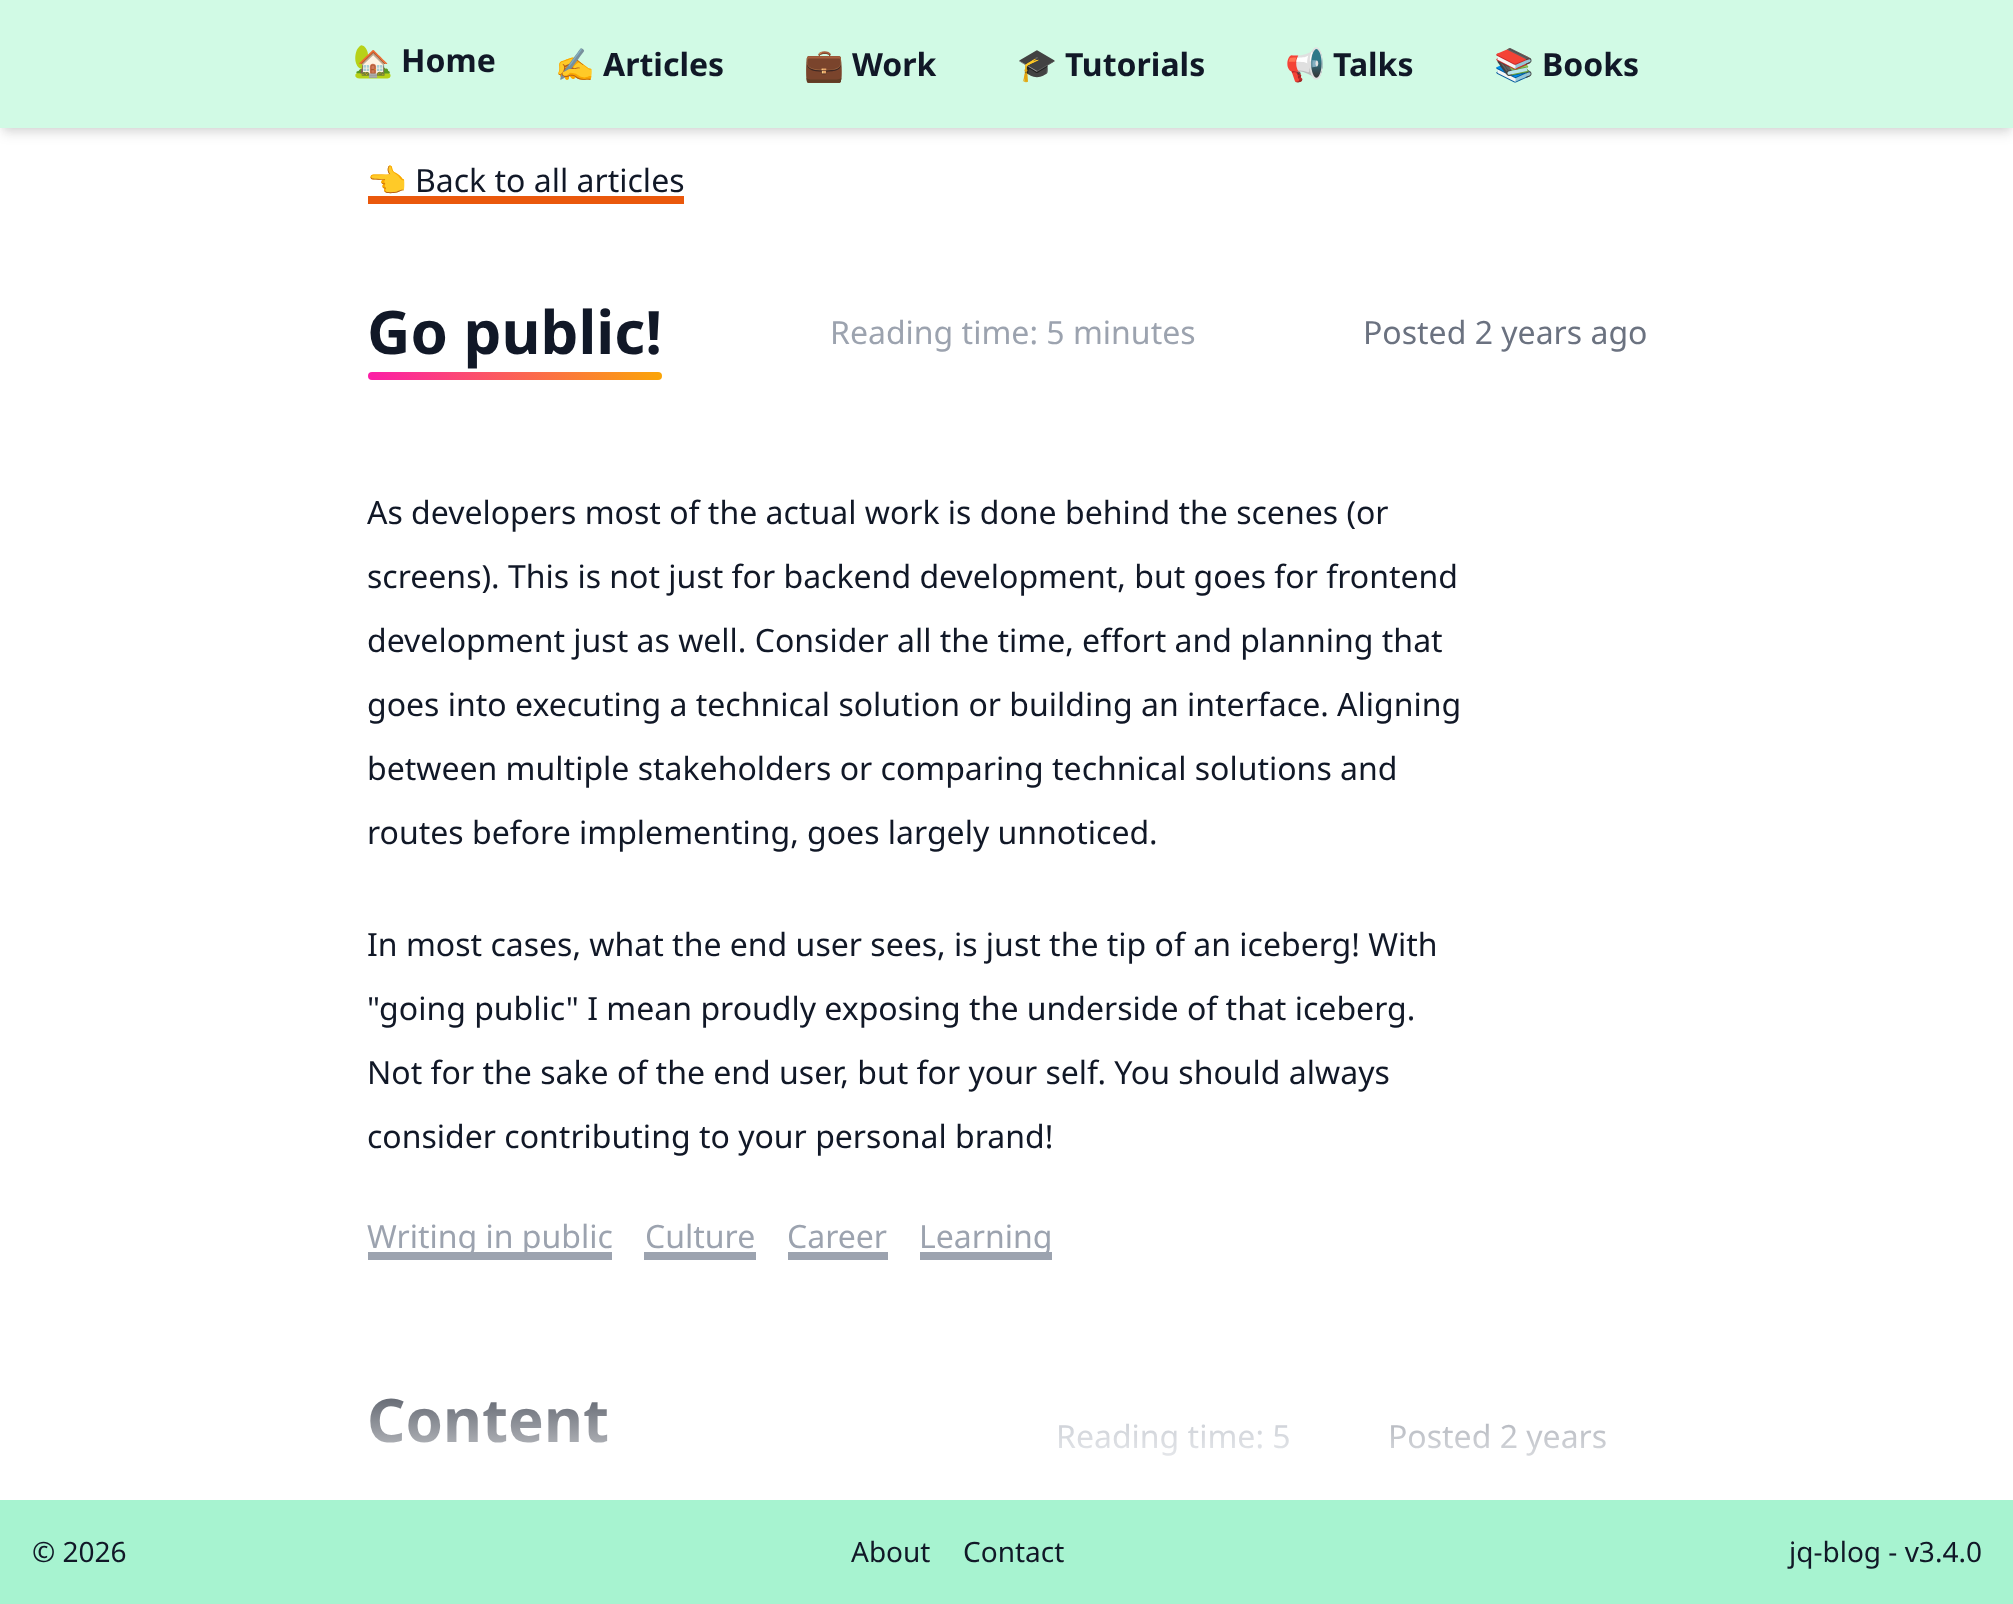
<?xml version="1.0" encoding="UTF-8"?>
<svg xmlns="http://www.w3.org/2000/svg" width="2013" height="1604">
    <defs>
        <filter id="blur1" x="-50%" y="-200%" width="200%" height="500%"><feGaussianBlur stdDeviation="4"/></filter>
        <filter id="blur2" x="-50%" y="-200%" width="200%" height="500%"><feGaussianBlur stdDeviation="6"/></filter>
        <linearGradient id="g1" gradientUnits="userSpaceOnUse" x1="368" y1="376" x2="662" y2="376"><stop offset="0" stop-color="#FC1DA7"/><stop offset="1" stop-color="#FBA506"/></linearGradient>
        <linearGradient id="g2" gradientUnits="userSpaceOnUse" x1="1007" y1="1500" x2="1007" y2="1340"><stop offset="0" stop-color="#FFFFFF"/><stop offset="1" stop-color="#FFFFFF" stop-opacity="0"/></linearGradient>
    </defs>
    <rect width="100%" height="100%" fill="#FFFFFF"/>
    <rect x="4" y="8" width="2006" height="120" fill="#000000" fill-opacity="0.1" filter="url(#blur1)"/>
    <rect x="2" y="10" width="2010" height="124" fill="#000000" fill-opacity="0.1" filter="url(#blur2)"/>
    <rect x="0" y="0" width="2013" height="128" fill="#D1FAE5"/>
    <text x="353" y="72" font-family="Noto Color Emoji" font-size="32" font-weight="700" fill="#111827">🏡</text>
    <text x="401" y="72" font-family="Noto Sans" font-size="32" font-weight="700" fill="#111827">Home</text>
    <text x="555" y="76" font-family="Noto Color Emoji" font-size="32" font-weight="700" fill="#111827">✍️</text>
    <text x="603" y="76" font-family="Noto Sans" font-size="32" font-weight="700" fill="#111827">Articles</text>
    <text x="804" y="76" font-family="Noto Color Emoji" font-size="32" font-weight="700" fill="#111827">💼</text>
    <text x="852" y="76" font-family="Noto Sans" font-size="32" font-weight="700" fill="#111827">Work</text>
    <text x="1017" y="76" font-family="Noto Color Emoji" font-size="32" font-weight="700" fill="#111827">🎓</text>
    <text x="1065" y="76" font-family="Noto Sans" font-size="32" font-weight="700" fill="#111827">Tutorials</text>
    <text x="1285" y="76" font-family="Noto Color Emoji" font-size="32" font-weight="700" fill="#111827">📢</text>
    <text x="1333" y="76" font-family="Noto Sans" font-size="32" font-weight="700" fill="#111827">Talks</text>
    <text x="1494" y="76" font-family="Noto Color Emoji" font-size="32" font-weight="700" fill="#111827">📚</text>
    <text x="1542" y="76" font-family="Noto Sans" font-size="32" font-weight="700" fill="#111827">Books</text>
    <rect x="368" y="196" width="316" height="8" fill="#EA580C"/>
    <text x="367" y="192" font-family="Noto Color Emoji" font-size="32" fill="#111827">👈</text>
    <text x="415" y="192" font-family="Noto Sans" font-size="32" fill="#111827">Back to all articles</text>
    <text x="367" y="354" font-family="Noto Sans" font-size="60" font-weight="700" fill="#111827">Go public!</text>
    <rect x="368" y="372" width="294" height="8" rx="4" fill="url(#g1)"/>
    <text x="830" y="344" font-family="Noto Sans" font-size="32" fill="#9CA3AF">Reading time: 5 minutes</text>
    <text x="1363" y="344" font-family="Noto Sans" font-size="32" fill="#6B7280">Posted 2 years ago</text>
    <text x="367" y="524" font-family="Noto Sans" font-size="32" fill="#111827">As developers most of the actual work is done behind the scenes (or</text>
    <text x="367" y="588" font-family="Noto Sans" font-size="32" fill="#111827">screens). This is not just for backend development, but goes for frontend</text>
    <text x="367" y="652" font-family="Noto Sans" font-size="32" fill="#111827">development just as well. Consider all the time, effort and planning that</text>
    <text x="367" y="716" font-family="Noto Sans" font-size="32" fill="#111827">goes into executing a technical solution or building an interface. Aligning</text>
    <text x="367" y="780" font-family="Noto Sans" font-size="32" fill="#111827">between multiple stakeholders or comparing technical solutions and</text>
    <text x="367" y="844" font-family="Noto Sans" font-size="32" fill="#111827">routes before implementing, goes largely unnoticed.</text>
    <text x="367" y="956" font-family="Noto Sans" font-size="32" fill="#111827">In most cases, what the end user sees, is just the tip of an iceberg! With</text>
    <text x="367" y="1020" font-family="Noto Sans" font-size="32" fill="#111827">"going public" I mean proudly exposing the underside of that iceberg.</text>
    <text x="367" y="1084" font-family="Noto Sans" font-size="32" fill="#111827">Not for the sake of the end user, but for your self. You should always</text>
    <text x="367" y="1148" font-family="Noto Sans" font-size="32" fill="#111827">consider contributing to your personal brand!</text>
    <rect x="368" y="1252" width="244" height="8" fill="#9CA3AF"/>
    <text x="367" y="1248" font-family="Noto Sans" font-size="32" fill="#9CA3AF">Writing in public</text>
    <text x="645" y="1248" font-family="Noto Sans" font-size="32" fill="#9CA3AF">Culture</text>
    <rect x="644" y="1252" width="112" height="8" fill="#9CA3AF"/>
    <text x="787" y="1248" font-family="Noto Sans" font-size="32" fill="#9CA3AF">Career</text>
    <rect x="788" y="1252" width="100" height="8" fill="#9CA3AF"/>
    <rect x="920" y="1252" width="132" height="8" fill="#9CA3AF"/>
    <text x="919" y="1248" font-family="Noto Sans" font-size="32" fill="#9CA3AF">Learning</text>
    <text x="367" y="1442" font-family="Noto Sans" font-size="60" font-weight="700" fill="#111827">Content</text>
    <text x="1056" y="1448" font-family="Noto Sans" font-size="32" fill="#9CA3AF">Reading time: 5</text>
    <text x="1388" y="1448" font-family="Noto Sans" font-size="32" fill="#6B7280">Posted 2 years</text>
    <rect x="0" y="1500" width="2013" height="104" fill="#A7F3D0"/>
    <rect x="370" y="1398" width="1236" height="58" fill="url(#g2)"/>
    <text x="32" y="1562" font-family="Noto Sans" font-size="28" fill="#111827">© 2026</text>
    <text x="851" y="1562" font-family="Noto Sans" font-size="28" fill="#111827">About</text>
    <text x="963" y="1562" font-family="Noto Sans" font-size="28" fill="#111827">Contact</text>
    <text x="1789" y="1562" font-family="Noto Sans" font-size="28" fill="#111827">jq-blog - v3.4.0</text>
</svg>
